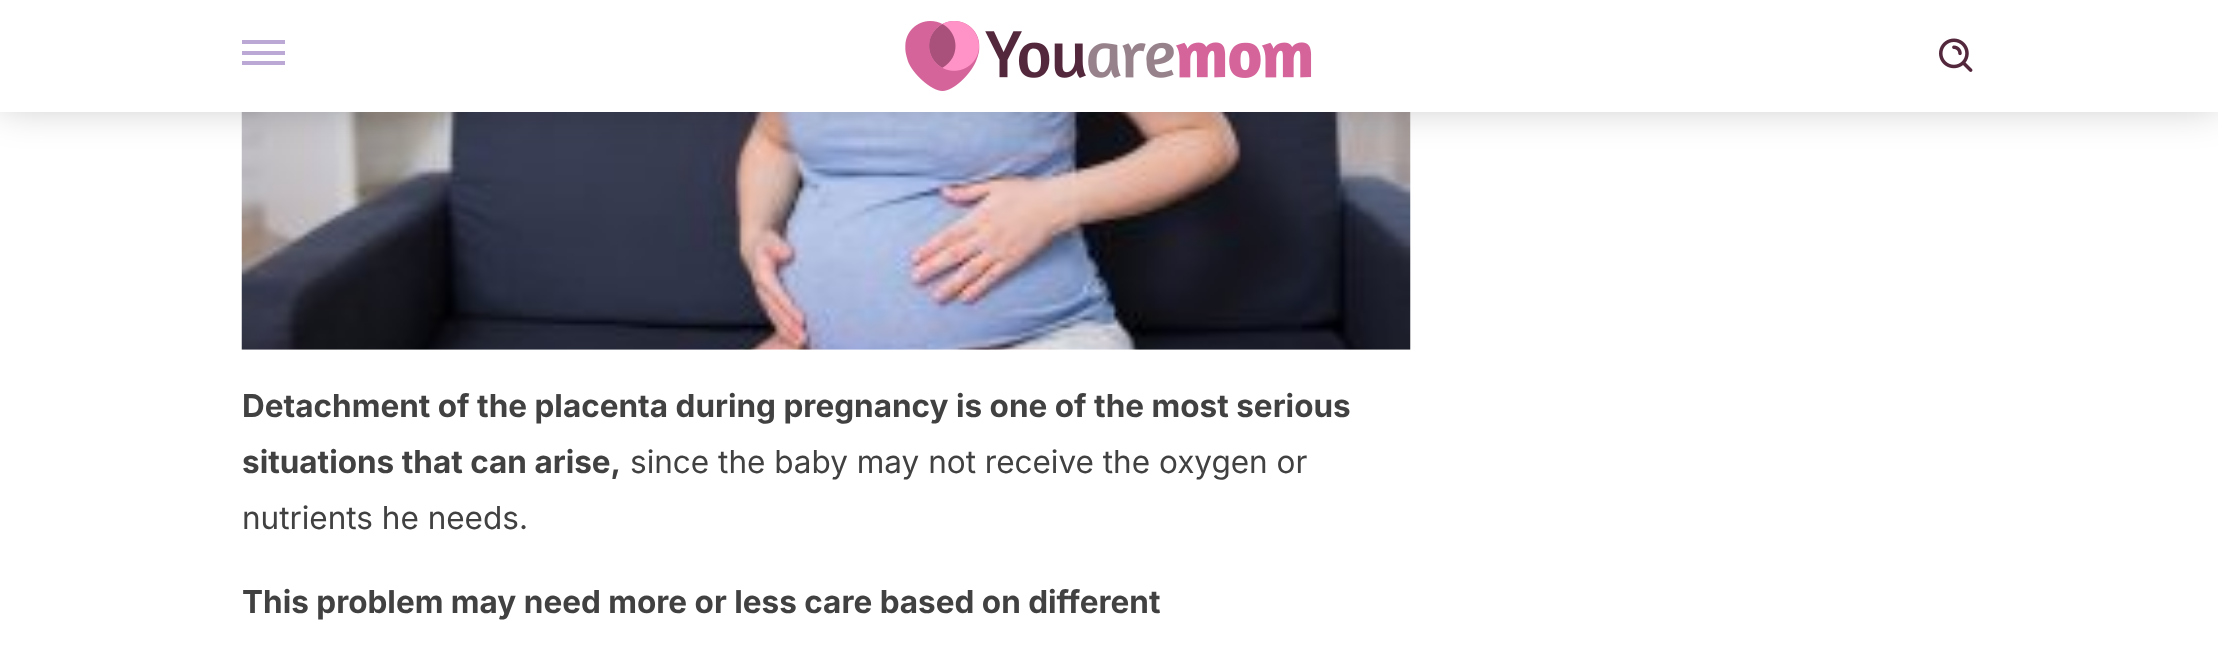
<?xml version="1.0" encoding="UTF-8"?>
<svg xmlns="http://www.w3.org/2000/svg" width="2218" height="652">
    <defs>
        <filter id="blur1" x="-50%" y="-200%" width="200%" height="500%"><feGaussianBlur stdDeviation="21"/></filter>
    </defs>
    <rect width="100%" height="100%" fill="#FFFFFF"/>
    <image x="241" y="112" width="1170" height="238" href="img_03.png"/>
    <rect x="0" y="-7" width="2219" height="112" fill="#000000" fill-opacity="0.25" filter="url(#blur1)"/>
    <rect x="0" y="0" width="2218" height="112" fill="#FFFFFF"/>
    <rect x="242" y="40" width="43" height="4" fill="#BCA8D5"/>
    <rect x="242" y="51" width="43" height="4" fill="#BCA8D5"/>
    <rect x="242" y="61" width="43" height="4" fill="#BCA8D5"/>
    <image x="905" y="21" width="407" height="70" href="img_01.png"/>
    <image x="1939" y="38" width="34" height="34" href="img_02.png"/>
    <text font-family="Inter" font-size="31.5" font-weight="700" fill="#414141">
        <tspan x="242" y="417">Detachment of the placenta during pregnancy is one of the most serious</tspan>
        <tspan x="242" y="473">situations that can arise,</tspan>
    </text>
    <text x="630" y="473" font-family="Inter" font-size="31.5" fill="#414141">since the baby may not receive the oxygen or</text>
    <text x="242" y="529" font-family="Inter" font-size="31.5" fill="#414141">nutrients he needs.</text>
    <text x="242" y="613" font-family="Inter" font-size="31.5" font-weight="700" fill="#414141">This problem may need more or less care based on different</text>
</svg>
